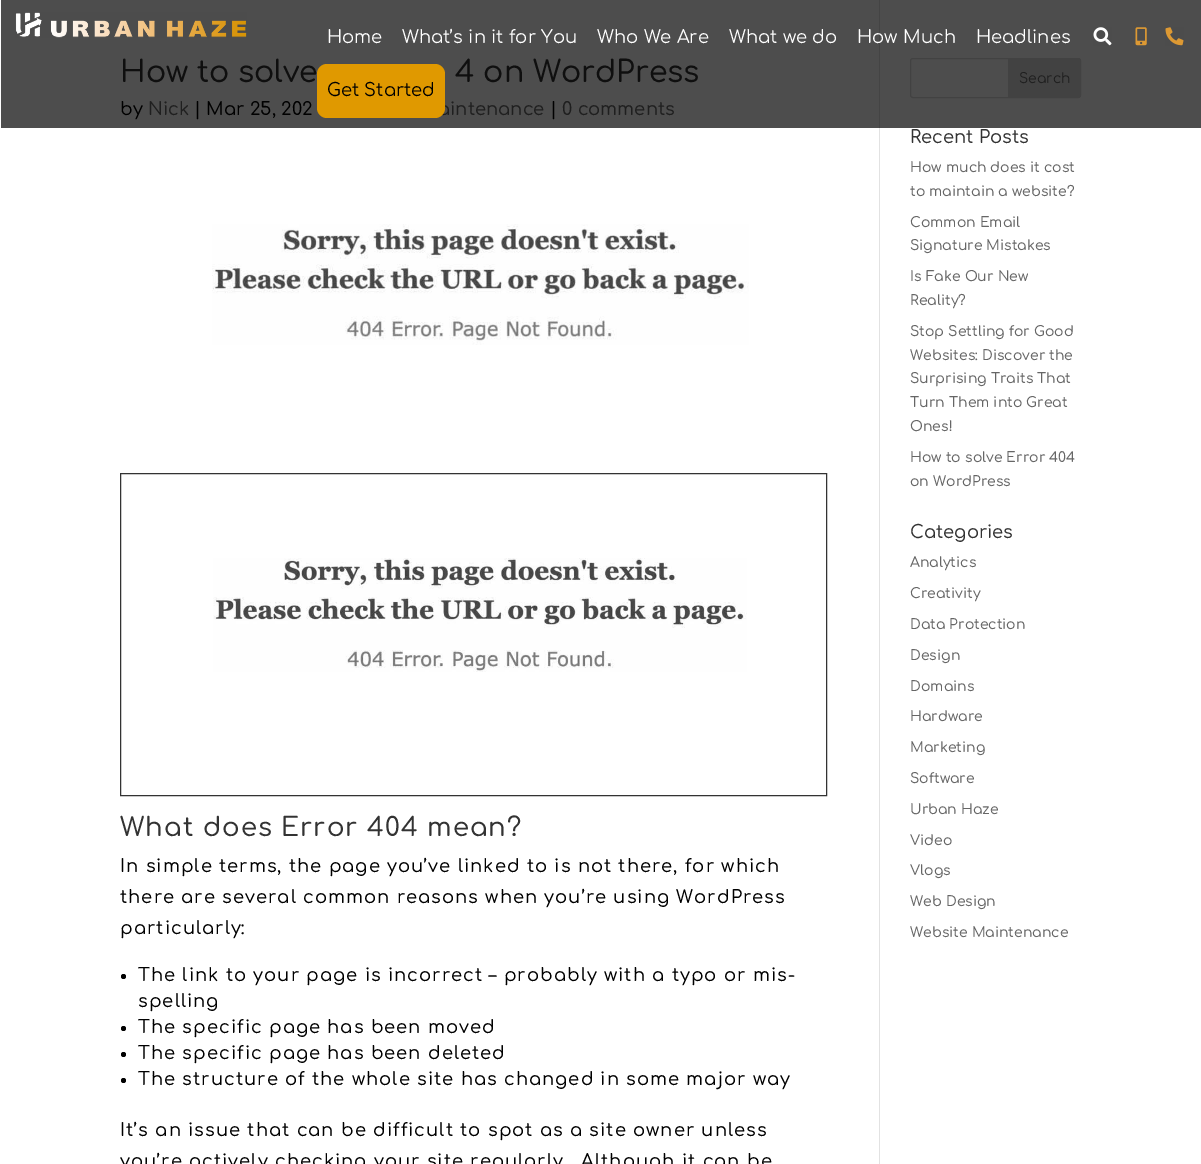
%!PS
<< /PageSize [1201 1164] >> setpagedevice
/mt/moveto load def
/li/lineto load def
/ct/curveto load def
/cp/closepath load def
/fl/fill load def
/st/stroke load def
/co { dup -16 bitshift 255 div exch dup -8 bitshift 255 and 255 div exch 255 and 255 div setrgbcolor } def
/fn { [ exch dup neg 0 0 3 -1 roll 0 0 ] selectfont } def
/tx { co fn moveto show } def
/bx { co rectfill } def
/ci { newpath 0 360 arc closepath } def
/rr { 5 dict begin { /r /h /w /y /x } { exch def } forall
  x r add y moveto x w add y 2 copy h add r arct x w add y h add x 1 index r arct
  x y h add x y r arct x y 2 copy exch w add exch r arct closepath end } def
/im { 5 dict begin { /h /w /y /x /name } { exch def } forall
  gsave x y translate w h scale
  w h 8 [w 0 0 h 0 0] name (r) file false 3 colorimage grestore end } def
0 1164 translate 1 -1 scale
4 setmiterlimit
0 0 1201 1164 16#FFFFFF bx
1 0 1200 128 16#4D4D4D bx
(media/1.raw) 15 12 232 26 im
(media/2.raw) 1093 27 19 19 im
(media/3.raw) 1135 27 12 19 im
(media/4.raw) 1165 27 19 19 im
879 128 1 1036 16#E2E2E2 bx
879 0 1 128 16#444444 bx
(media/5.raw) 212 224 537 121 im
16#333333 co
120.5 473.5 706 322 rectstroke
(media/6.raw) 213 558 534 114 im
16#000000 co
123.5 976.5 2.5 ci fl
123.5 1028.5 2.5 ci fl
123.5 1054.5 2.5 ci fl
123.5 1080.5 2.5 ci fl
16#424242 co
910.5 58.5 170 39 2.5 rr st
1008 58 mt 1078 58 li 1079.5 58 1081 59.5 1081 61 ct 1081 95 li 1081 96.5 1079.5 98 1078 98 ct 1008 98 li cp fl
(Home) 327 43 /Comfortaa-Regular 18 16#FFFFFF tx
(What’s in it for You) 402 43 /Comfortaa-Regular 18 16#FFFFFF tx
(Who We Are) 597 43 /Comfortaa-Regular 18 16#FFFFFF tx
(What we do) 729 43 /Comfortaa-Regular 18 16#FFFFFF tx
(How Much) 857 43 /Comfortaa-Regular 18 16#FFFFFF tx
(Headlines) 976 43 /Comfortaa-Regular 18 16#FFFFFF tx
(How to solve) 120 82 /Comfortaa-Medium 30 16#0F0F0F tx
(4 on WordPress) 455 82 /Comfortaa-Medium 30 16#0F0F0F tx
(by) 120 115 /Comfortaa-Medium 18 16#000000 tx
(Nick) 148 115 /Comfortaa-Medium 18 16#1F1F1F tx
(| Mar 25, 202) 194 115 /Comfortaa-Medium 18 16#000000 tx
(aintenance) 438 115 /Comfortaa-Medium 18 16#1F1F1F tx
16#E09900 co
317 64 128 54 10 rr fl
(Get Started) 327 96 /Comfortaa-Regular 18 16#000000 tx
(|) 550 115 /Comfortaa-Medium 18 16#000000 tx
(0 comments) 562 115 /Comfortaa-Medium 18 16#1F1F1F tx
/Comfortaa-Medium 26 fn
16#333333 co
120 836 mt 1 0 (What does Error 404 mean?) ashow
/Comfortaa-Medium 18 fn
16#000000 co
120 872 mt 1 0 (In simple terms, the page you’ve linked to is not there, for which) ashow
120 903 mt 1 0 (there are several common reasons when you’re using WordPress) ashow
120 934 mt 1 0 (particularly:) ashow
138 981 mt 1 0 (The link to your page is incorrect – probably with a typo or mis-) ashow
138 1007 mt 1 0 (spelling) ashow
138 1033 mt 1 0 (The specific page has been moved) ashow
138 1059 mt 1 0 (The specific page has been deleted) ashow
138 1085 mt 1 0 (The structure of the whole site has changed in some major way) ashow
120 1136 mt 1 0 (It’s an issue that can be difficult to spot as a site owner unless) ashow
120 1167 mt 1 0 (you’re actively checking your site regularly.  Although it can be) ashow
(Search) 1019 83 /Comfortaa-Regular 14 16#1F1F1F tx
(Recent Posts) 910 143 /Comfortaa-Medium 18 16#333333 tx
(How much does it cost) 910 172 /Comfortaa-Medium 14 16#666666 tx
(to maintain a website?) 910 196 /Comfortaa-Medium 14 16#666666 tx
(Common Email) 910 227 /Comfortaa-Medium 14 16#666666 tx
(Signature Mistakes) 910 250 /Comfortaa-Medium 14 16#666666 tx
(Is Fake Our New) 910 281 /Comfortaa-Medium 14 16#666666 tx
(Reality?) 910 305 /Comfortaa-Medium 14 16#666666 tx
(Stop Settling for Good) 910 336 /Comfortaa-Medium 14 16#666666 tx
(Websites: Discover the) 910 360 /Comfortaa-Medium 14 16#666666 tx
(Surprising Traits That) 910 383 /Comfortaa-Medium 14 16#666666 tx
(Turn Them into Great) 910 407 /Comfortaa-Medium 14 16#666666 tx
(Ones!) 910 431 /Comfortaa-Medium 14 16#666666 tx
(How to solve Error 404) 910 462 /Comfortaa-Medium 14 16#666666 tx
(on WordPress) 910 486 /Comfortaa-Medium 14 16#666666 tx
(Categories) 910 538 /Comfortaa-Medium 18 16#333333 tx
(Analytics) 910 567 /Comfortaa-Medium 14 16#666666 tx
(Creativity) 910 598 /Comfortaa-Medium 14 16#666666 tx
(Data Protection) 910 629 /Comfortaa-Medium 14 16#666666 tx
(Design) 910 660 /Comfortaa-Medium 14 16#666666 tx
(Domains) 910 691 /Comfortaa-Medium 14 16#666666 tx
(Hardware) 910 721 /Comfortaa-Medium 14 16#666666 tx
(Marketing) 910 752 /Comfortaa-Medium 14 16#666666 tx
(Software) 910 783 /Comfortaa-Medium 14 16#666666 tx
(Urban Haze) 910 814 /Comfortaa-Medium 14 16#666666 tx
(Video) 910 845 /Comfortaa-Medium 14 16#666666 tx
(Vlogs) 910 875 /Comfortaa-Medium 14 16#666666 tx
(Web Design) 910 906 /Comfortaa-Medium 14 16#666666 tx
(Website Maintenance) 910 937 /Comfortaa-Medium 14 16#666666 tx
showpage
